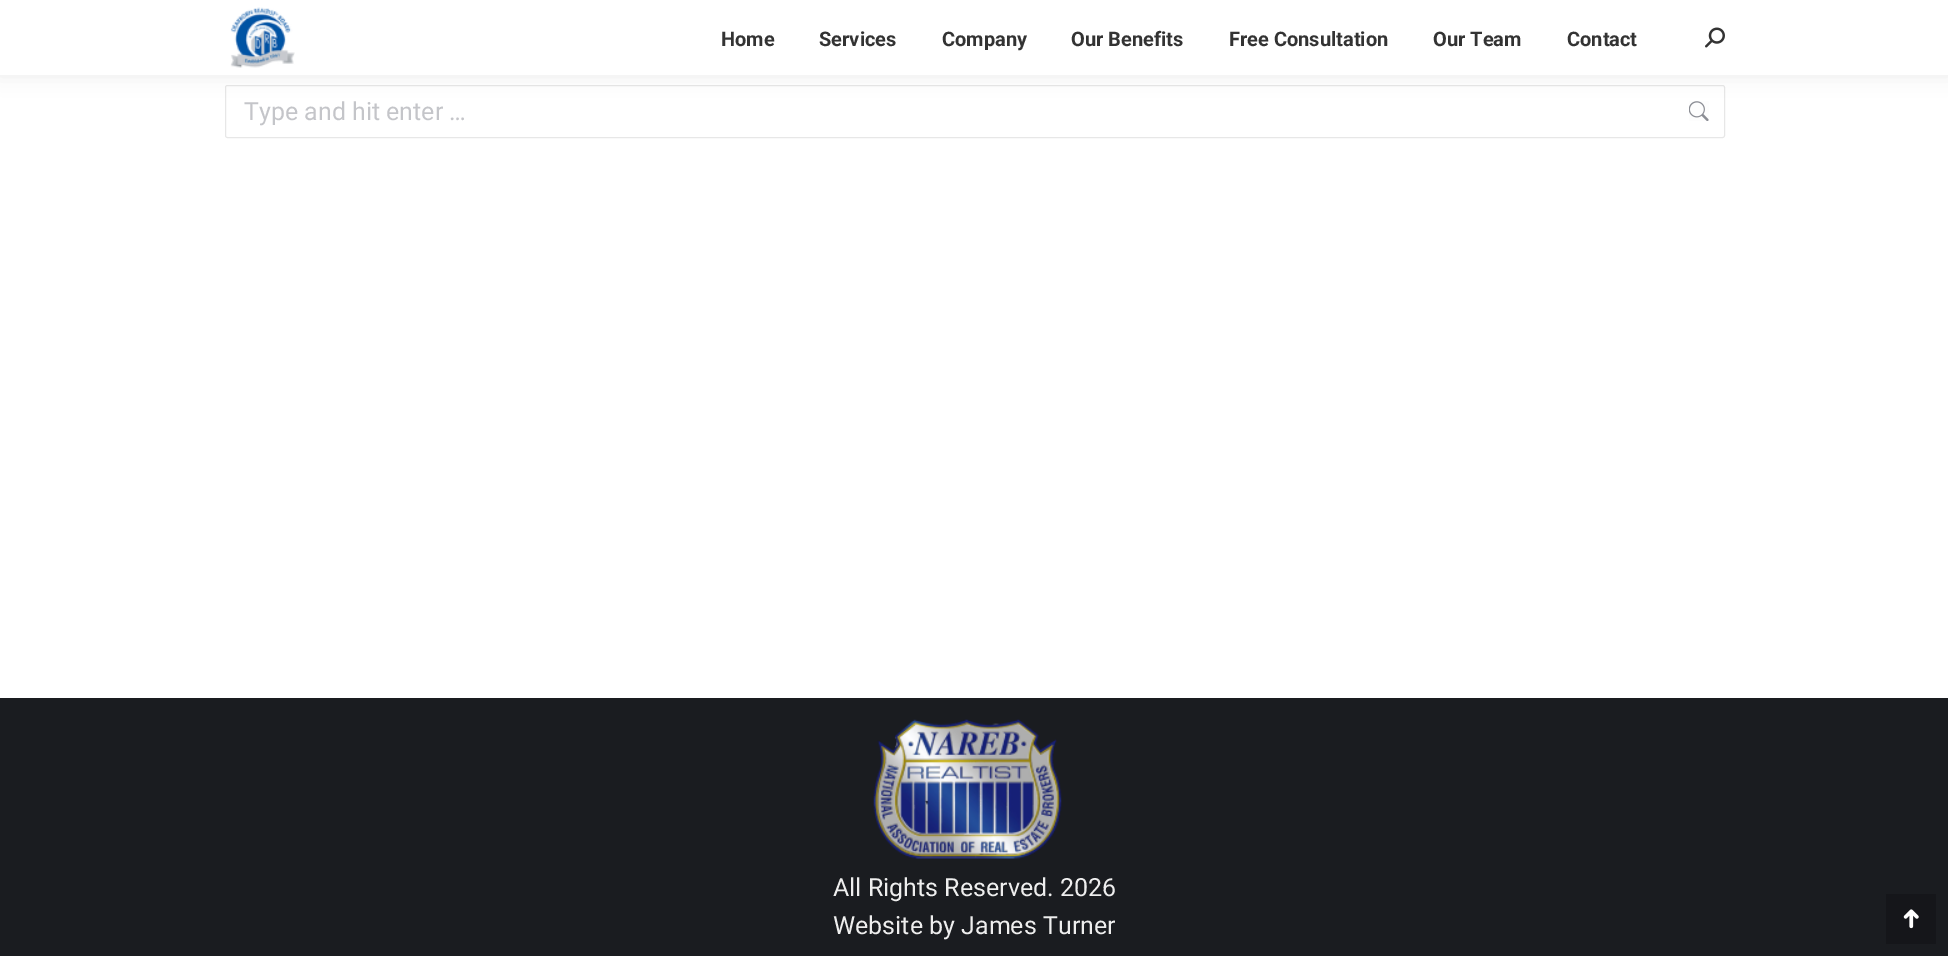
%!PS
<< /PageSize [1948 956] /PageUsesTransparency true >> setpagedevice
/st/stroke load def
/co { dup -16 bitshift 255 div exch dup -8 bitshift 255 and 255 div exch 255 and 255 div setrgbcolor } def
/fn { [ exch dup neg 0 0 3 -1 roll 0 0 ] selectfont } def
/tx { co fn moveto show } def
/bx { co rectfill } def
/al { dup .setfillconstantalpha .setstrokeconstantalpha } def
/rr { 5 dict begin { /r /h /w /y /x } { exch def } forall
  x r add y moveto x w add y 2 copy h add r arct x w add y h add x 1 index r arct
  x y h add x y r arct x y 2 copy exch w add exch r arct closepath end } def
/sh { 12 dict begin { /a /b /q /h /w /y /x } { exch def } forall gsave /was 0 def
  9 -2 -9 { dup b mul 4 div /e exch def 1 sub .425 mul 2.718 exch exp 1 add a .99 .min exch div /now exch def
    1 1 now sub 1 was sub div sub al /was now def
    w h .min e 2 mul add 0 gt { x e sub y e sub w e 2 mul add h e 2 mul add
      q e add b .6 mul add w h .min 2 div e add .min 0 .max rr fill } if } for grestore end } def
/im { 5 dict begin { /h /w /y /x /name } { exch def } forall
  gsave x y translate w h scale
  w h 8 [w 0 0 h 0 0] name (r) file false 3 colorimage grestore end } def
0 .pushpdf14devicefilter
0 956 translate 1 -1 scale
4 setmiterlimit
0 0 1948 956 16#FFFFFF bx
16#E7E7E7 co
225.5 85.5 1499 52 2 rr st
(media/3.raw) 1689 101 20 20 im
16#000000 co
-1 -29 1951 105 0 9.5 .07 sh
0 0 1948 75 16#FFFFFF bx
(media/1.raw) 230 7 65 61 im
(media/2.raw) 1705 27 20 21 im
0 698 1948 258 16#1A1C20 bx
(media/4.raw) 873 719 189 140 im
1886 894 50 50 16#15161A bx
(media/5.raw) 1903 909 16 20 im
(Home) 721 46 /Roboto-Bold 20 16#333333 tx
(Services) 819 46 /Roboto-Bold 20 16#333333 tx
(Company) 942 46 /Roboto-Bold 20 16#333333 tx
(Our Benefits) 1071 46 /Roboto-Bold 20 16#333333 tx
(Free Consultation) 1229 46 /Roboto-Bold 20 16#333333 tx
(Our Team) 1433 46 /Roboto-Bold 20 16#333333 tx
(Contact) 1567 46 /Roboto-Bold 20 16#333333 tx
(Type and hit enter …) 244 120 /Roboto-Regular 25 16#C4C5C9 tx
(All Rights Reserved. 2026) 833 896 /Roboto-Regular 25 16#EEEEEE tx
(Website by James Turner) 833 934 /Roboto-Regular 25 16#EEEEEE tx
.poppdf14devicefilter showpage
